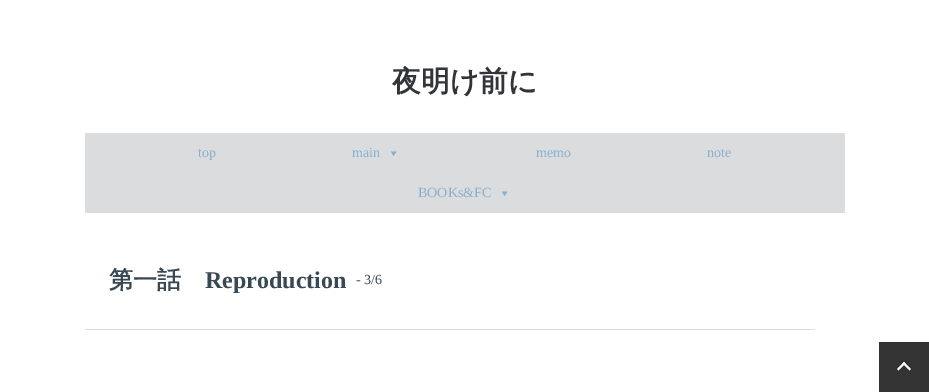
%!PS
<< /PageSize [929 392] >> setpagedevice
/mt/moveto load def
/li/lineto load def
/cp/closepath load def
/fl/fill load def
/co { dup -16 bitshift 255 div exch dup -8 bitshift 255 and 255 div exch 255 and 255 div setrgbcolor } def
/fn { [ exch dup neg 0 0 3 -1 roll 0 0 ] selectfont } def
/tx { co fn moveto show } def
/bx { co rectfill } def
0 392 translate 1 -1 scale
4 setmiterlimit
0 0 929 392 16#FFFFFF bx
85 133 760 80 16#DADCDE bx
16#8BAFCE co
396.5 151.5 mt 393.5 156 li 391 151.5 li cp fl
507.5 191.5 mt 504.5 196 li 502 191.5 li cp fl
85 329 730 1 16#DDDDDD bx
879 342 50 50 16#333333 bx
16#FFFFFF co
904 362 mt 911 369 li 909.5 370.5 li 902.5 363.5 li cp fl
904 362 mt 905.5 363.5 li 898.5 370.5 li 897 369 li cp fl
(夜明け前に) 392 91 /WenQuanYiZenHei-Bold 28.75 16#323438 tx
(top) 198 157 /LiberationSerif-Regular 14 16#8BAFCE tx
(main) 352 157 /LiberationSerif-Regular 14 16#8BAFCE tx
(memo) 536 157 /LiberationSerif-Regular 14 16#8BAFCE tx
(note) 707 157 /LiberationSerif-Regular 14 16#8BAFCE tx
(BOOKs&FC) 418 197 /LiberationSerif-Regular 14 16#8BAFCE tx
(第一話) 109 288 /WenQuanYiZenHei-Bold 24 16#394855 tx
(Reproduction) 205 288 /LiberationSerif-Bold 24 16#394855 tx
(- 3/6) 356 284 /LiberationSerif-Regular 14 16#394855 tx
showpage
